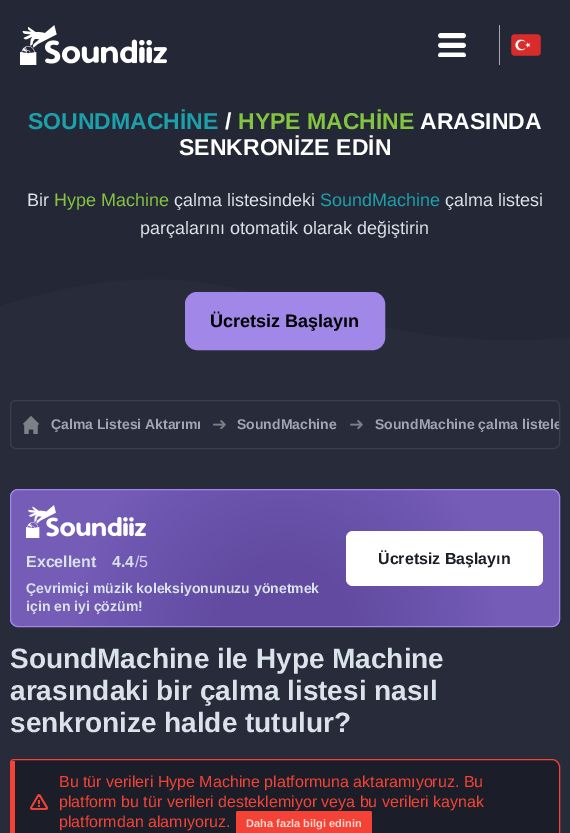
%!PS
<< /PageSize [570 833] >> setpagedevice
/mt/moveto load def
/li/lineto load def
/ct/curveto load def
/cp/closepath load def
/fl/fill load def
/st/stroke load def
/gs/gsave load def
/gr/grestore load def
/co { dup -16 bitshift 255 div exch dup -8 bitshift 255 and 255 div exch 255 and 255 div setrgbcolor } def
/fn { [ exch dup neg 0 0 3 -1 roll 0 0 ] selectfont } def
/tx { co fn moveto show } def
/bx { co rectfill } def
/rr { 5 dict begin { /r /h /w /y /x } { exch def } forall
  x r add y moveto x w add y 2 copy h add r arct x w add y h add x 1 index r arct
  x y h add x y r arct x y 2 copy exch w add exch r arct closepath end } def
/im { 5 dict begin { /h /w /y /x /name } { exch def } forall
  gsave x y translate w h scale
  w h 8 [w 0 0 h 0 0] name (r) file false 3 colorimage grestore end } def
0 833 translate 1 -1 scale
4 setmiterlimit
0 0 570 833 16#282B39 bx
0 0 570 341 16#242735 bx
(media/1.raw) 20 25 147 40 im
(media/2.raw) 438 33 28 24 im
499 25 1 40 16#A7A9AE bx
(media/3.raw) 511 34 30 22 im
gs
0 261 570 119 rectclip
16#282B39 co
-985 330 mt -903 286 -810 257 -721 285 ct -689 295 -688 302 -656 311 ct -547 340 -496 273 -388 277 ct -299 280 -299 327 -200 344 ct -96 361 -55 314 61 290 ct 272 245 310 360 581 337 ct 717 325 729 294 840 303 ct 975 314 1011 363 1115 346 ct 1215 329 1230 276 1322 263 ct 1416 251 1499 292 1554 328 ct 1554 380 li -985 381 li cp fl
gr
16#A187E8 co
185.5 292.5 199 57 11.5 rr gs fl gr
st
16#3A3F50 co
10.5 400.5 549 48 5.5 rr st
(media/4.raw) 23 416 16 18 im
(media/5.raw) 213 420 13 9 im
(media/5.raw) 350 420 13 9 im
gs 10.5 489.5 549 137 7.5 rr clip newpath 285 627 translate 308 308 scale
<< /ShadingType 3 /ColorSpace /DeviceRGB /Coords [0 0 0 0 0 1] /Extend [true true] /Function << /FunctionType 3 /Domain [0 1] /Functions [<< /FunctionType 2 /Domain [0 1] /C0 [.38 .29 .627] /C1 [.38 .29 .627] /N 1 >> << /FunctionType 2 /Domain [0 1] /C0 [.38 .29 .627] /C1 [.455 .361 .718] /N 1 >> << /FunctionType 2 /Domain [0 1] /C0 [.455 .361 .718] /C1 [.455 .361 .718] /N 1 >>] /Bounds [.2 .7] /Encode [0 1 0 1 0 1] >> >> shfill gr
16#A187E8 co
10.5 489.5 549 137 7.5 rr st
(media/6.raw) 26 505 120 33 im
16#FFFFFF co
346 531 197 55 7 rr fl
16#1B1E28 co
15 760 mt 552 760 li 556 760 559 763 559 767 ct 559 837 li 559 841 556 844 552 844 ct 15 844 li cp fl
(media/7.raw) 30 794 18 16 im
16#F44336 co
14 759.5 mt 552 759.5 li 556 759.5 559.5 763 559.5 767 ct 559.5 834 li 559.5 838 556 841.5 552 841.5 ct 14 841.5 li 12 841.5 10.5 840 10.5 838 ct 10.5 763 li 10.5 761 12 759.5 14 759.5 ct cp st
11 761 4 72 16#F44336 bx
236 811 136 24 2 rr fl
(SOUNDMACHİNE) 28 129 /LiberationSans-Bold 23 16#1CA1AA tx
(/) 225 129 /LiberationSans-Bold 23 16#FFFFFF tx
(HYPE MACHİNE) 238 129 /LiberationSans-Bold 23 16#83C441 tx
(ARASINDA) 420 129 /LiberationSans-Bold 23 16#FFFFFF tx
(SENKRONİZE EDİN) 179 155 /LiberationSans-Bold 23 16#FFFFFF tx
(Bir) 27 206 /LiberationSans-Regular 18 16#DAE3E9 tx
(Hype Machine) 54 206 /LiberationSans-Regular 18 16#83C441 tx
(çalma listesindeki) 174 206 /LiberationSans-Regular 18 16#DAE3E9 tx
(SoundMachine) 320 206 /LiberationSans-Regular 18 16#1CA1AA tx
(çalma listesi) 445 206 /LiberationSans-Regular 18 16#DAE3E9 tx
(parçalarını otomatik olarak değiştirin) 140 234 /LiberationSans-Regular 18 16#DAE3E9 tx
(Ücretsiz Başlayın) 210 327 /LiberationSans-Bold 18 16#000000 tx
(Çalma Listesi Aktarımı) 51 429 /LiberationSans-Bold 14 16#A1A6B6 tx
(SoundMachine) 237 429 /LiberationSans-Bold 14 16#A1A6B6 tx
gs
11 401 548 47 5 rr clip newpath
(SoundMachine çalma listele) 375 429 /LiberationSans-Bold 14 16#A1A6B6 tx
gr
(Excellent) 26 567 /LiberationSans-Bold 16 16#DAE3E9 tx
(4.4) 112 567 /LiberationSans-Bold 16 16#DAE3E9 tx
(/5) 135 567 /LiberationSans-Regular 16 16#DAD2F5 tx
(Çevrimiçi müzik koleksiyonunuzu yönetmek) 26 593 /LiberationSans-Bold 14 16#DAE3E9 tx
(için en iyi çözüm!) 26 611 /LiberationSans-Bold 14 16#DAE3E9 tx
(Ücretsiz Başlayın) 378 564 /LiberationSans-Bold 16 16#1B1E28 tx
(SoundMachine ile Hype Machine) 10 668 /LiberationSans-Bold 28 16#DAE3E9 tx
(arasındaki bir çalma listesi nasıl) 10 700 /LiberationSans-Bold 28 16#DAE3E9 tx
(senkronize halde tutulur?) 10 732 /LiberationSans-Bold 28 16#DAE3E9 tx
(Bu tür verileri Hype Machine platformuna aktaramıyoruz. Bu) 59 787 /LiberationSans-Regular 16 16#F44336 tx
(platform bu tür verileri desteklemiyor veya bu verileri kaynak) 59 807 /LiberationSans-Regular 16 16#F44336 tx
(platformdan alamıyoruz.) 59 827 /LiberationSans-Regular 16 16#F44336 tx
(Daha fazla bilgi edinin) 246 827 /LiberationSans-Bold 11 16#FDD5CF tx
showpage
